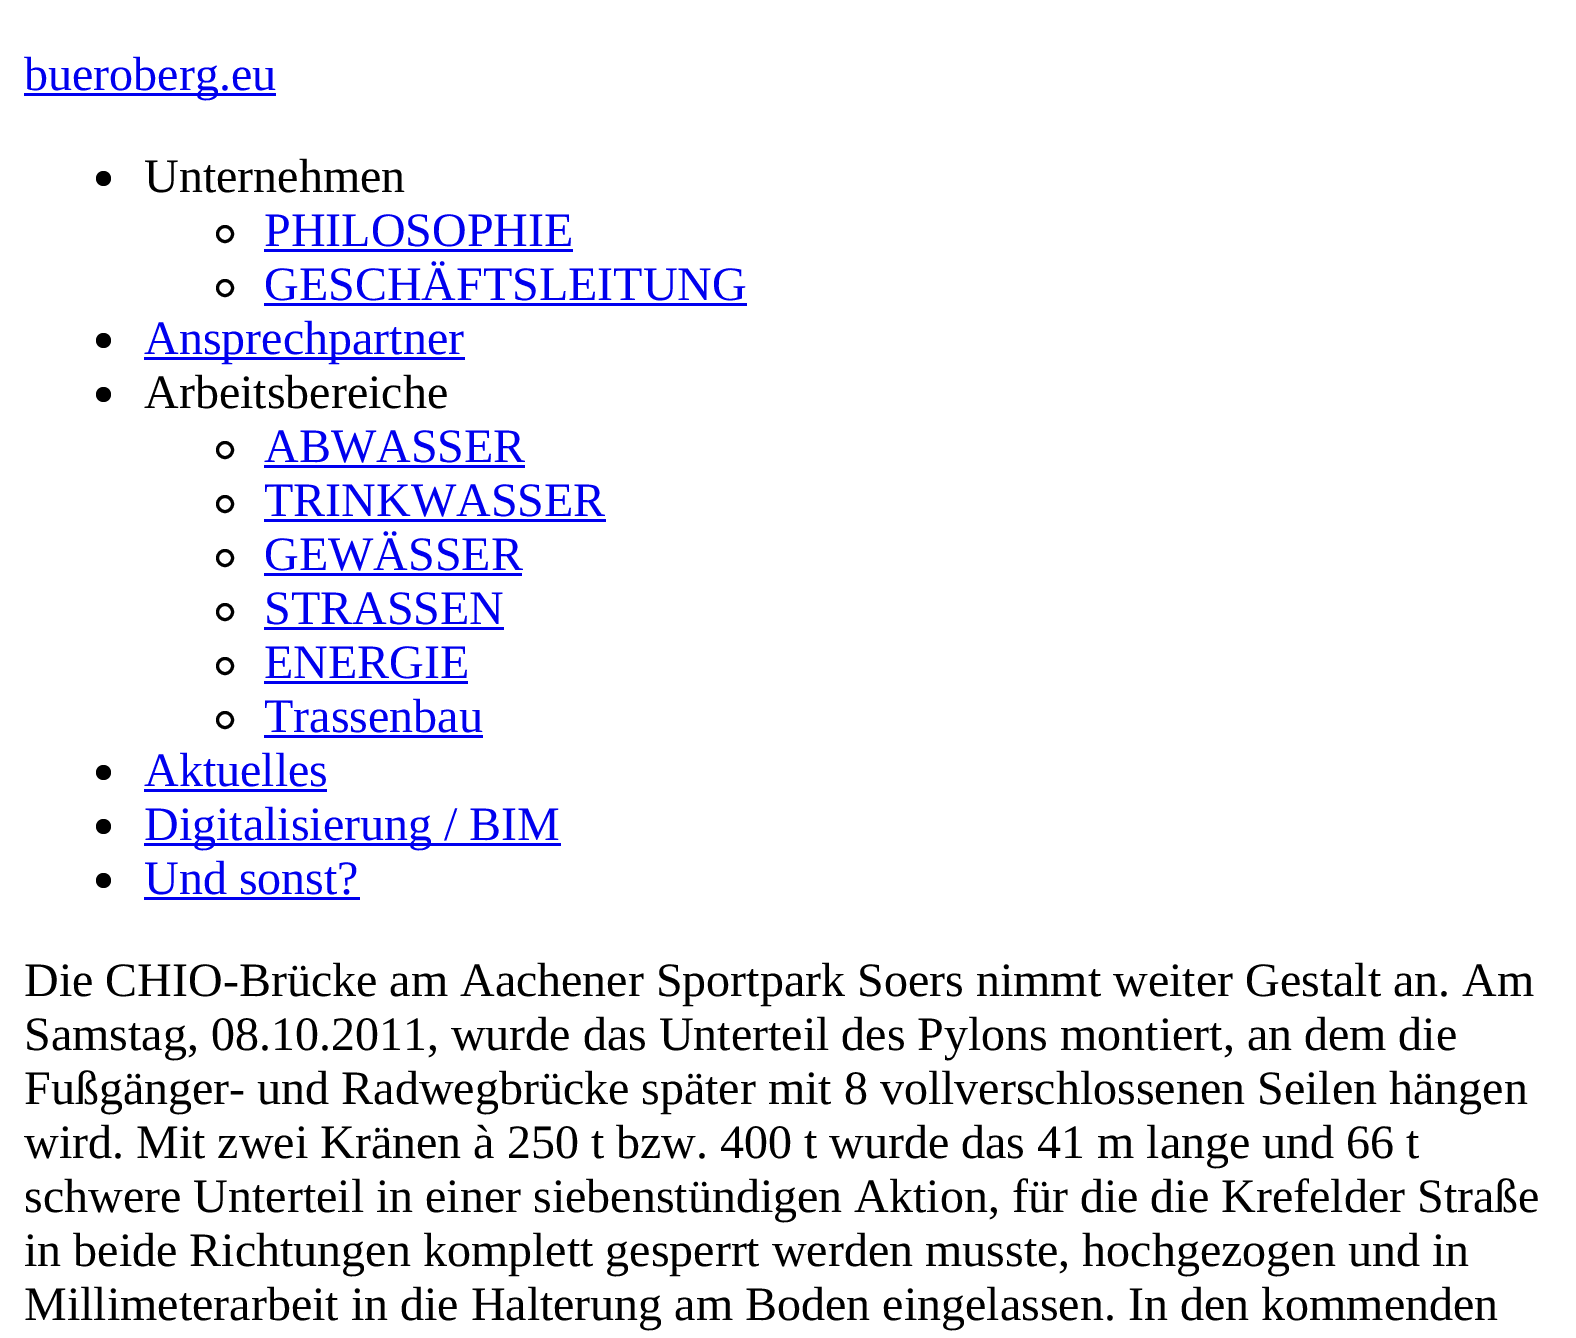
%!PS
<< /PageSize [1576 1338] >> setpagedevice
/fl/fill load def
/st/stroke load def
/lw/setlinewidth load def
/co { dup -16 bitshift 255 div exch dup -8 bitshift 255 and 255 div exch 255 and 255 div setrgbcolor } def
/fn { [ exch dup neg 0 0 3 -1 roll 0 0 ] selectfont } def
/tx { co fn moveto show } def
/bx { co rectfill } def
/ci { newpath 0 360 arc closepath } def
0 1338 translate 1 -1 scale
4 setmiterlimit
0 0 1576 1338 16#FFFFFF bx
24 93 252 3 16#0000EE bx
16#000000 co
103.5 178.5 7.5 ci fl
3 lw
225 234 7.5 ci st
264 249 309 3 16#0000EE bx
16#000000 co
225 288 7.5 ci st
264 303 483 3 16#0000EE bx
16#000000 co
103.5 340.5 7.5 ci fl
144 357 321 3 16#0000EE bx
16#000000 co
103.5 394.5 7.5 ci fl
225 450 7.5 ci st
264 465 261 3 16#0000EE bx
16#000000 co
225 504 7.5 ci st
264 519 342 3 16#0000EE bx
16#000000 co
225 558 7.5 ci st
264 573 258 3 16#0000EE bx
16#000000 co
225 612 7.5 ci st
264 627 240 3 16#0000EE bx
16#000000 co
225 666 7.5 ci st
264 681 204 3 16#0000EE bx
16#000000 co
225 720 7.5 ci st
264 735 219 3 16#0000EE bx
16#000000 co
103.5 772.5 7.5 ci fl
144 789 183 3 16#0000EE bx
16#000000 co
103.5 826.5 7.5 ci fl
144 843 417 3 16#0000EE bx
16#000000 co
103.5 880.5 7.5 ci fl
144 897 216 3 16#0000EE bx
(bueroberg.eu) 24 90 /LiberationSerif-Regular 48 16#0000EE tx
(Unternehmen) 144 192 /LiberationSerif-Regular 48 16#000000 tx
(PHILOSOPHIE) 264 246 /LiberationSerif-Regular 48 16#0000EE tx
(GESCHÄFTSLEITUNG) 264 300 /LiberationSerif-Regular 48 16#0000EE tx
(Ansprechpartner) 144 354 /LiberationSerif-Regular 48 16#0000EE tx
(Arbeitsbereiche) 144 408 /LiberationSerif-Regular 48 16#000000 tx
(ABWASSER) 264 462 /LiberationSerif-Regular 48 16#0000EE tx
(TRINKWASSER) 264 516 /LiberationSerif-Regular 48 16#0000EE tx
(GEWÄSSER) 264 570 /LiberationSerif-Regular 48 16#0000EE tx
(STRASSEN) 264 624 /LiberationSerif-Regular 48 16#0000EE tx
(ENERGIE) 264 678 /LiberationSerif-Regular 48 16#0000EE tx
(Trassenbau) 264 732 /LiberationSerif-Regular 48 16#0000EE tx
(Aktuelles) 144 786 /LiberationSerif-Regular 48 16#0000EE tx
(Digitalisierung / BIM) 144 840 /LiberationSerif-Regular 48 16#0000EE tx
(Und sonst?) 144 894 /LiberationSerif-Regular 48 16#0000EE tx
(Die CHIO-Brücke am Aachener Sportpark Soers nimmt weiter Gestalt an. Am) 24 996 /LiberationSerif-Regular 48 16#000000 tx
(Samstag, 08.10.2011, wurde das Unterteil des Pylons montiert, an dem die) 24 1050 /LiberationSerif-Regular 48 16#000000 tx
(Fußgänger- und Radwegbrücke später mit 8 vollverschlossenen Seilen hängen) 24 1104 /LiberationSerif-Regular 48 16#000000 tx
(wird. Mit zwei Kränen à 250 t bzw. 400 t wurde das 41 m lange und 66 t) 24 1158 /LiberationSerif-Regular 48 16#000000 tx
(schwere Unterteil in einer siebenstündigen Aktion, für die die Krefelder Straße) 24 1212 /LiberationSerif-Regular 48 16#000000 tx
(in beide Richtungen komplett gesperrt werden musste, hochgezogen und in) 24 1266 /LiberationSerif-Regular 48 16#000000 tx
(Millimeterarbeit in die Halterung am Boden eingelassen. In den kommenden) 24 1320 /LiberationSerif-Regular 48 16#000000 tx
showpage
